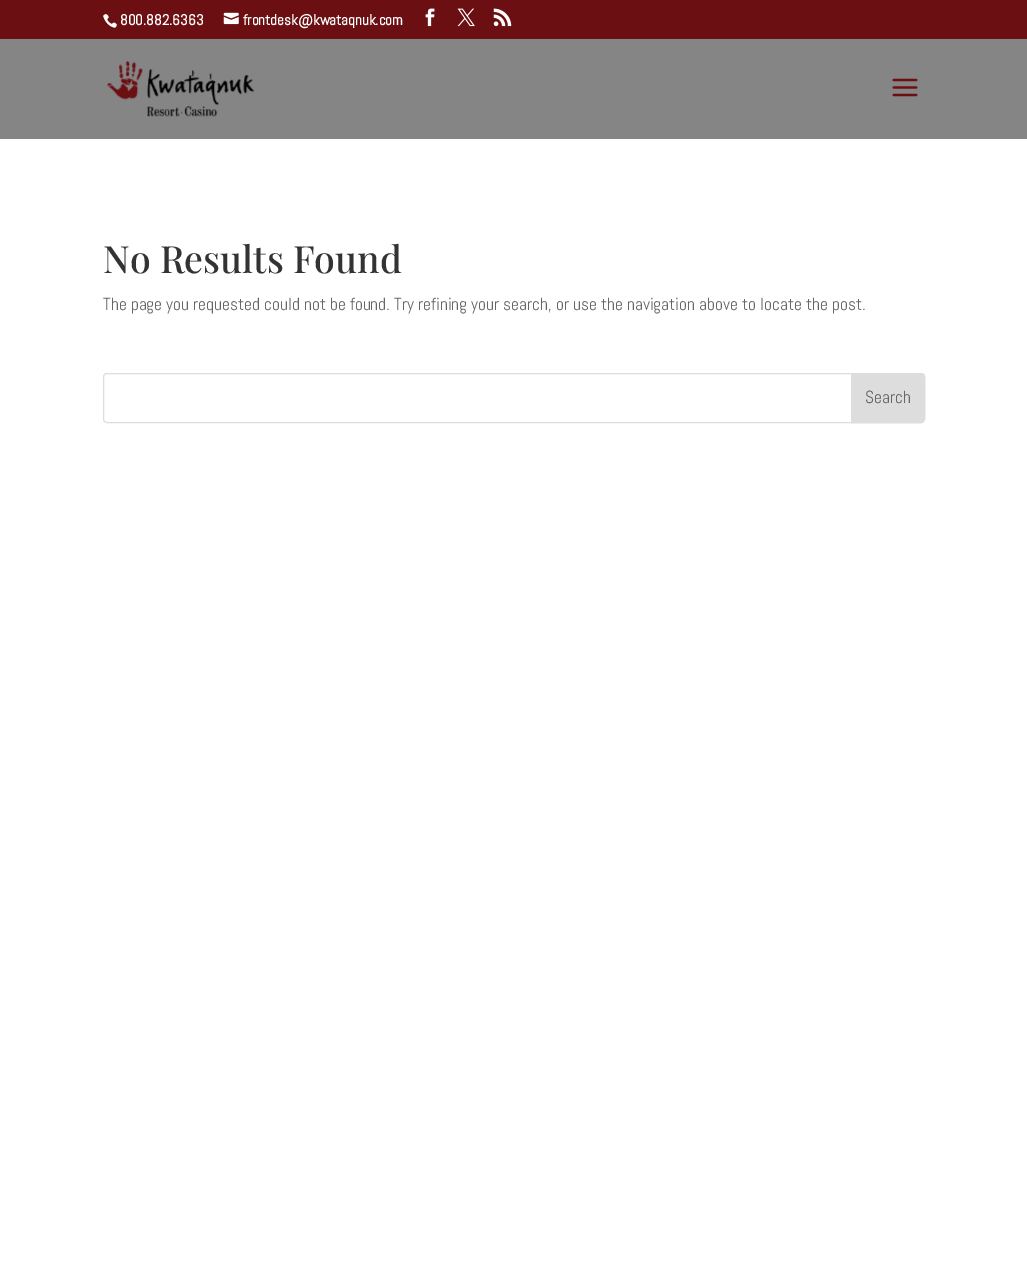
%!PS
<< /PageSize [1027 1261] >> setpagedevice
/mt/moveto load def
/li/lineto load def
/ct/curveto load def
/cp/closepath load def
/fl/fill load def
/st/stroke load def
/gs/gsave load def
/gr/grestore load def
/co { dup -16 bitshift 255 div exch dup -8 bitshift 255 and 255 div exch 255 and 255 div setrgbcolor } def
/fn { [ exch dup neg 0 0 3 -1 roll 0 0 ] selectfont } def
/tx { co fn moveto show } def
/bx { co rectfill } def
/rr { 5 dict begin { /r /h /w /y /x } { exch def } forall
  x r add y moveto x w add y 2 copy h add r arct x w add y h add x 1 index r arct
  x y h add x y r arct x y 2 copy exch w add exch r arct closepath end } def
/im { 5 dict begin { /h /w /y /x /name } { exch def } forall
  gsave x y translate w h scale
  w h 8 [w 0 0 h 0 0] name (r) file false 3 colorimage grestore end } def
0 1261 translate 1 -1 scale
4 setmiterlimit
0 0 1027 1261 16#FFFFFF bx
0 0 1027 39 16#6C0F12 bx
(media/1.raw) 103 14 14 14 im
(media/2.raw) 223 12 16 13 im
(media/3.raw) 425 8 10 19 im
(media/4.raw) 457 8 18 19 im
(media/5.raw) 493 8 19 19 im
0 39 1027 100 16#858585 bx
(media/6.raw) 107 61 148 56 im
(media/7.raw) 892 78 26 19 im
16#DDDDDD co
103.5 373.5 821 49 3.5 rr st
851.5 373.5 mt 921 373.5 li 923 373.5 924.5 375 924.5 377 ct 924.5 419 li 924.5 421 923 422.5 921 422.5 ct 851.5 422.5 li cp gs fl gr
st
(800.882.6363) 120 25 /Abel-Bold 15 16#FFFFFF tx
(frontdesk@kwataqnuk.com) 243 25 /Abel-Bold 15 16#FFFFFF tx
(No Results Found) 103 273 /PlayfairDisplay-Medium 37.5 16#333333 tx
(The page you requested could not be found. Try refining your search, or use the navigation above to locate the post.) 103 310 /Abel-Regular 17.5 16#666666 tx
(Search) 865 403 /Abel-Regular 17.5 16#666666 tx
showpage
